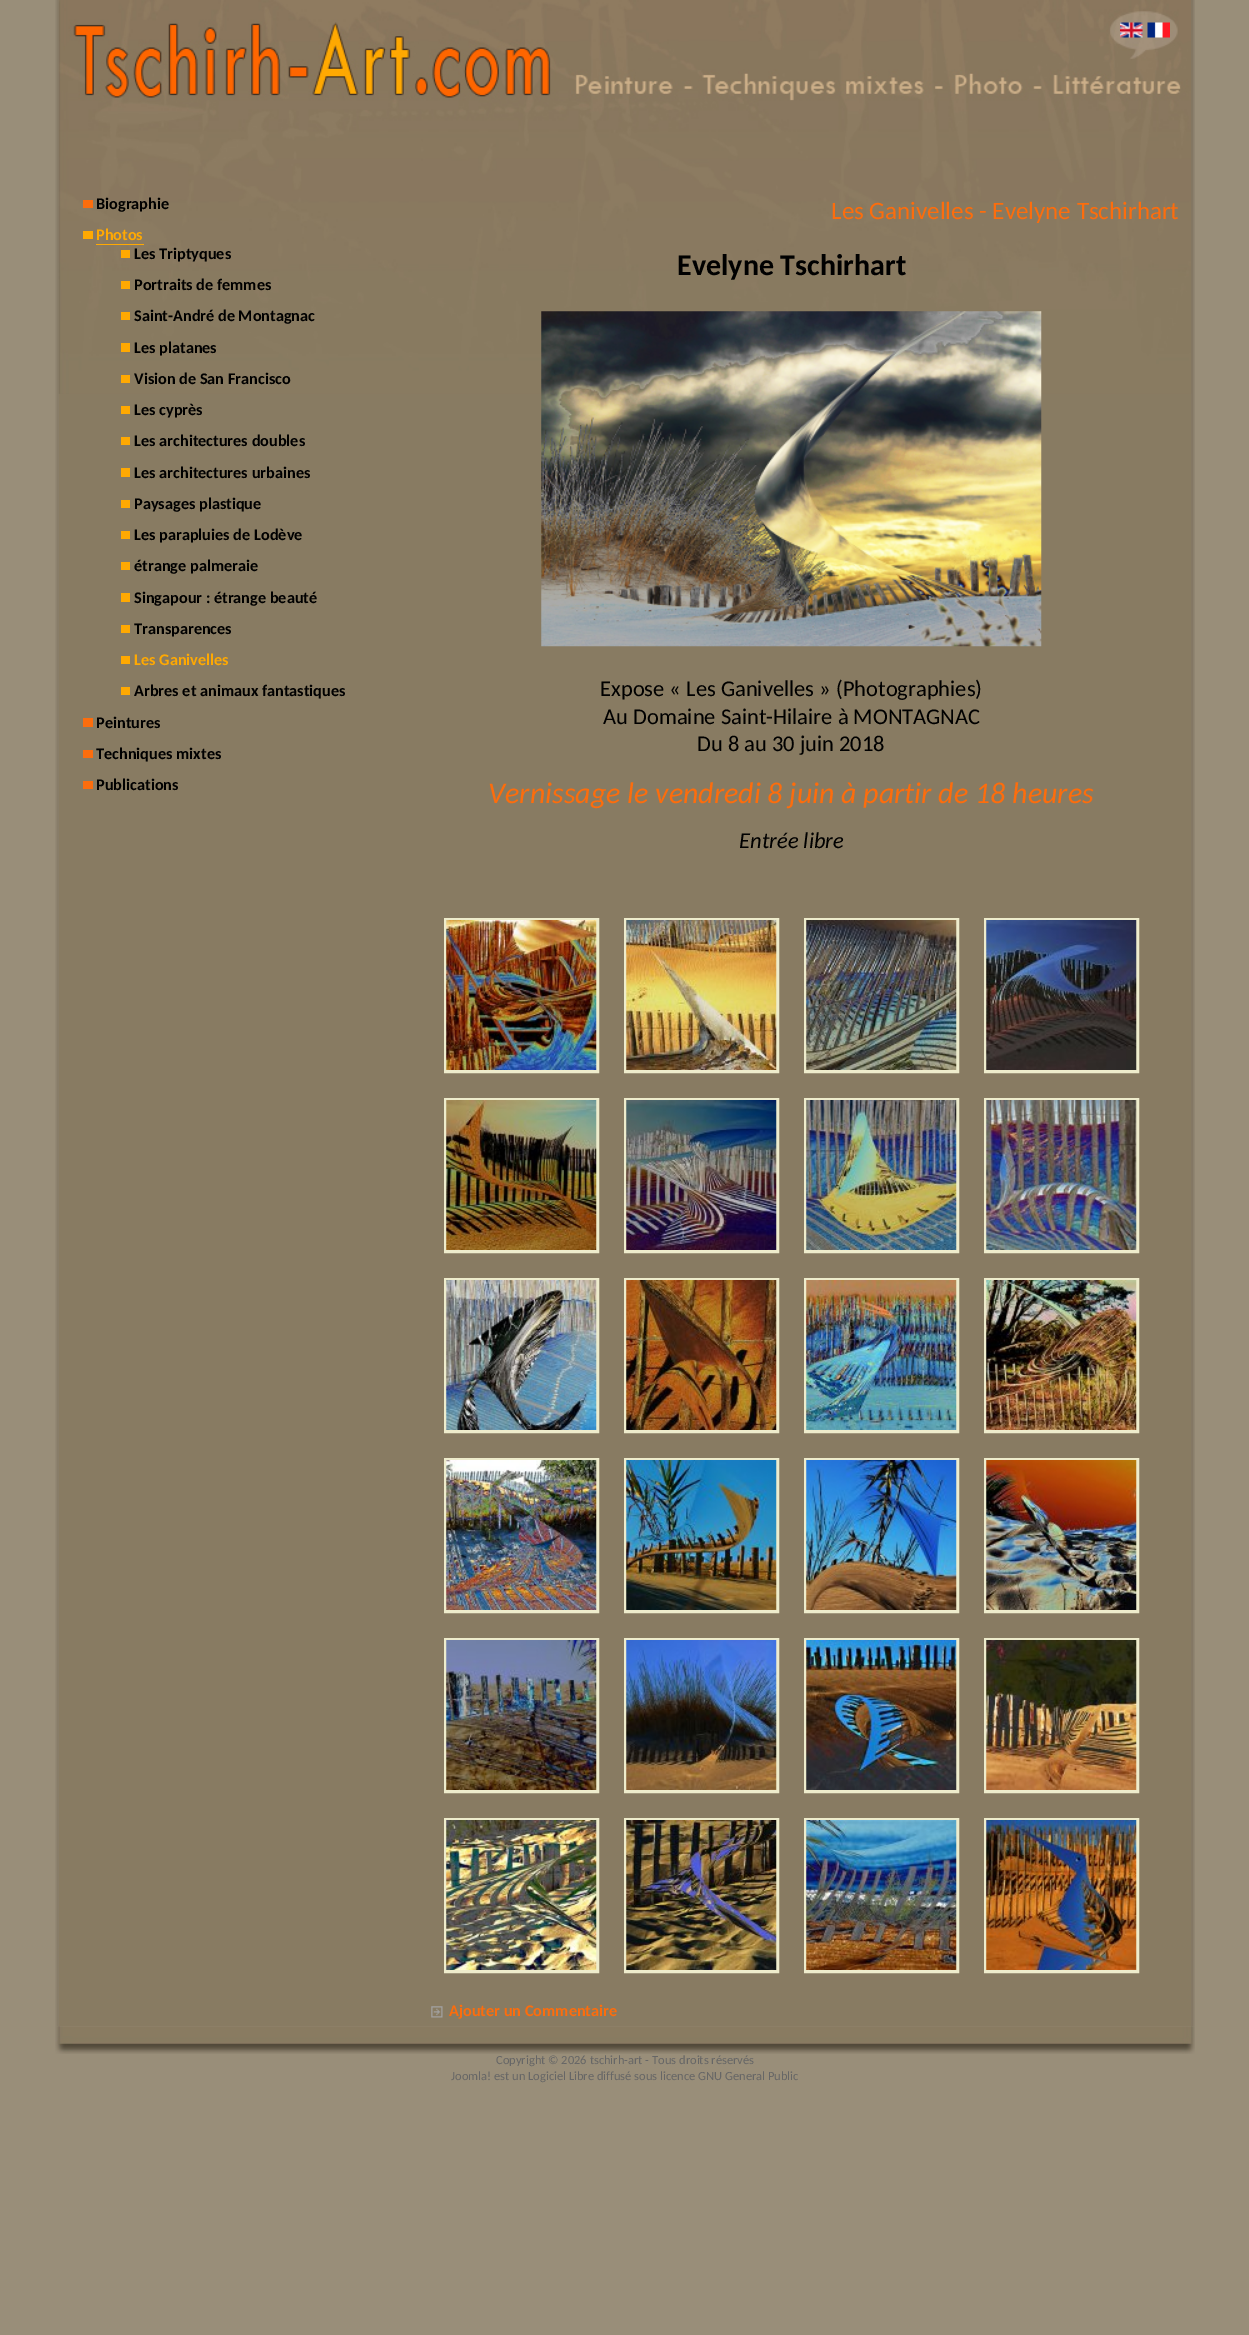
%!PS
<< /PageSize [1249 2335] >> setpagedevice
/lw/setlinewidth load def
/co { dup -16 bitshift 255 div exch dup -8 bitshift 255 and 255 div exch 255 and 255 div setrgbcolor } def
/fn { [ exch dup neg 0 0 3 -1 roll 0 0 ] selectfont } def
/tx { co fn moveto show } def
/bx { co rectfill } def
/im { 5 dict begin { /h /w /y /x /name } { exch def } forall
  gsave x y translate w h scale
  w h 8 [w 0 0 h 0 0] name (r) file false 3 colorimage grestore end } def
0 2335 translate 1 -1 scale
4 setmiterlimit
0 0 1249 2335 16#998E79 bx
(media/1.raw) 55 0 4 2027 im
59 393 1132 1633 16#887B62 bx
(media/2.raw) 58 0 1134 394 im
(media/3.raw) 1120 22 23 16 im
(media/4.raw) 1147 22 23 16 im
83 200 10 8 16#FC6D0D bx
83 231 10 8 16#FFA902 bx
96 244 48 1 16#FFA902 bx
121 250 9 8 16#FFA902 bx
121 281 9 8 16#FFA902 bx
121 312 9 8 16#FFA902 bx
121 343 9 9 16#FFA902 bx
121 375 9 8 16#FFA902 bx
121 406 9 8 16#FFA902 bx
121 437 9 8 16#FFA902 bx
121 468 9 9 16#FFA902 bx
121 500 9 8 16#FFA902 bx
121 531 9 8 16#FFA902 bx
121 562 9 8 16#FFA902 bx
121 593 9 9 16#FFA902 bx
121 625 9 8 16#FFA902 bx
121 656 9 8 16#FFA902 bx
121 687 9 8 16#FFA902 bx
83 718 10 9 16#FC6D0D bx
83 750 10 8 16#FC6D0D bx
83 781 10 8 16#FC6D0D bx
(media/5.raw) 541 311 501 336 im
16#EEECCC co
3 lw
445.5 919.5 152 152 rectstroke
(media/6.raw) 446 920 151 150 im
625.5 919.5 152 152 rectstroke
(media/7.raw) 626 920 151 150 im
805.5 919.5 152 152 rectstroke
(media/8.raw) 806 920 151 150 im
985.5 919.5 152 152 rectstroke
(media/9.raw) 986 920 151 150 im
445.5 1099.5 152 152 rectstroke
(media/10.raw) 446 1100 151 150 im
625.5 1099.5 152 152 rectstroke
(media/11.raw) 626 1100 151 150 im
805.5 1099.5 152 152 rectstroke
(media/12.raw) 806 1100 151 150 im
985.5 1099.5 152 152 rectstroke
(media/13.raw) 986 1100 151 150 im
445.5 1279.5 152 152 rectstroke
(media/14.raw) 446 1280 151 150 im
625.5 1279.5 152 152 rectstroke
(media/15.raw) 626 1280 151 150 im
805.5 1279.5 152 152 rectstroke
(media/16.raw) 806 1280 151 150 im
985.5 1279.5 152 152 rectstroke
(media/17.raw) 986 1280 151 150 im
445.5 1459.5 152 152 rectstroke
(media/18.raw) 446 1460 151 150 im
625.5 1459.5 152 152 rectstroke
(media/19.raw) 626 1460 151 150 im
805.5 1459.5 152 152 rectstroke
(media/20.raw) 806 1460 151 150 im
985.5 1459.5 152 152 rectstroke
(media/21.raw) 986 1460 151 150 im
445.5 1639.5 152 152 rectstroke
(media/22.raw) 446 1640 151 150 im
625.5 1639.5 152 152 rectstroke
(media/23.raw) 626 1640 151 150 im
805.5 1639.5 152 152 rectstroke
(media/24.raw) 806 1640 151 150 im
985.5 1639.5 152 152 rectstroke
(media/25.raw) 986 1640 151 150 im
445.5 1819.5 152 152 rectstroke
(media/26.raw) 446 1820 151 150 im
625.5 1819.5 152 152 rectstroke
(media/27.raw) 626 1820 151 150 im
805.5 1819.5 152 152 rectstroke
(media/28.raw) 806 1820 151 150 im
985.5 1819.5 152 152 rectstroke
(media/29.raw) 986 1820 151 150 im
(media/30.raw) 431 2006 12 12 im
(media/31.raw) 1191 0 4 2027 im
(media/32.raw) 55 2026 1140 28 im
(Biographie) 96 209 /Carlito-Bold 16.25 16#000000 tx
(Photos) 96 240 /Carlito-Bold 16.25 16#FFA902 tx
(Les Triptyques) 134 259 /Carlito-Bold 16.25 16#000000 tx
(Portraits de femmes) 134 290 /Carlito-Bold 16.25 16#000000 tx
(Saint-André de Montagnac) 134 321 /Carlito-Bold 16.25 16#000000 tx
(Les platanes) 134 353 /Carlito-Bold 16.25 16#000000 tx
(Vision de San Francisco) 134 384 /Carlito-Bold 16.25 16#000000 tx
(Les cyprès) 134 415 /Carlito-Bold 16.25 16#000000 tx
(Les architectures doubles) 134 446 /Carlito-Bold 16.25 16#000000 tx
(Les architectures urbaines) 134 478 /Carlito-Bold 16.25 16#000000 tx
(Paysages plastique) 134 509 /Carlito-Bold 16.25 16#000000 tx
(Les parapluies de Lodève) 134 540 /Carlito-Bold 16.25 16#000000 tx
(étrange palmeraie) 134 571 /Carlito-Bold 16.25 16#000000 tx
(Singapour : étrange beauté) 134 603 /Carlito-Bold 16.25 16#000000 tx
(Transparences) 134 634 /Carlito-Bold 16.25 16#000000 tx
(Les Ganivelles) 134 665 /Carlito-Bold 16.25 16#FFA902 tx
(Arbres et animaux fantastiques) 134 696 /Carlito-Bold 16.25 16#000000 tx
(Peintures) 96 728 /Carlito-Bold 16.25 16#000000 tx
(Techniques mixtes) 96 759 /Carlito-Bold 16.25 16#000000 tx
(Publications) 96 790 /Carlito-Bold 16.25 16#000000 tx
(Les Ganivelles - Evelyne Tschirhart) 831 219 /Carlito-Regular 25 16#FC6D0D tx
(Evelyne Tschirhart) 677 275 /Carlito-Bold 30 16#000000 tx
(Expose « Les Ganivelles » \(Photographies\)) 600 696 /Carlito-Regular 22.5 16#000000 tx
(Au Domaine Saint-Hilaire à MONTAGNAC) 603 724 /Carlito-Regular 22.5 16#000000 tx
(Du 8 au 30 juin 2018) 697 751 /Carlito-Regular 22.5 16#000000 tx
(Vernissage le vendredi 8 juin à partir de 18 heures) 488 803 /Carlito-Italic 30 16#FC6D0D tx
(Entrée libre) 739 848 /Carlito-Italic 22.5 16#000000 tx
(Ajouter un Commentaire) 449 2016 /Carlito-Bold 16.25 16#FC6D0D tx
(Copyright © 2026 tschirh-art - Tous droits réservés) 496 2064 /Carlito-Regular 12.5 16#666666 tx
(Joomla! est un Logiciel Libre diffusé sous licence GNU General Public) 451 2080 /Carlito-Regular 12.5 16#666666 tx
showpage
